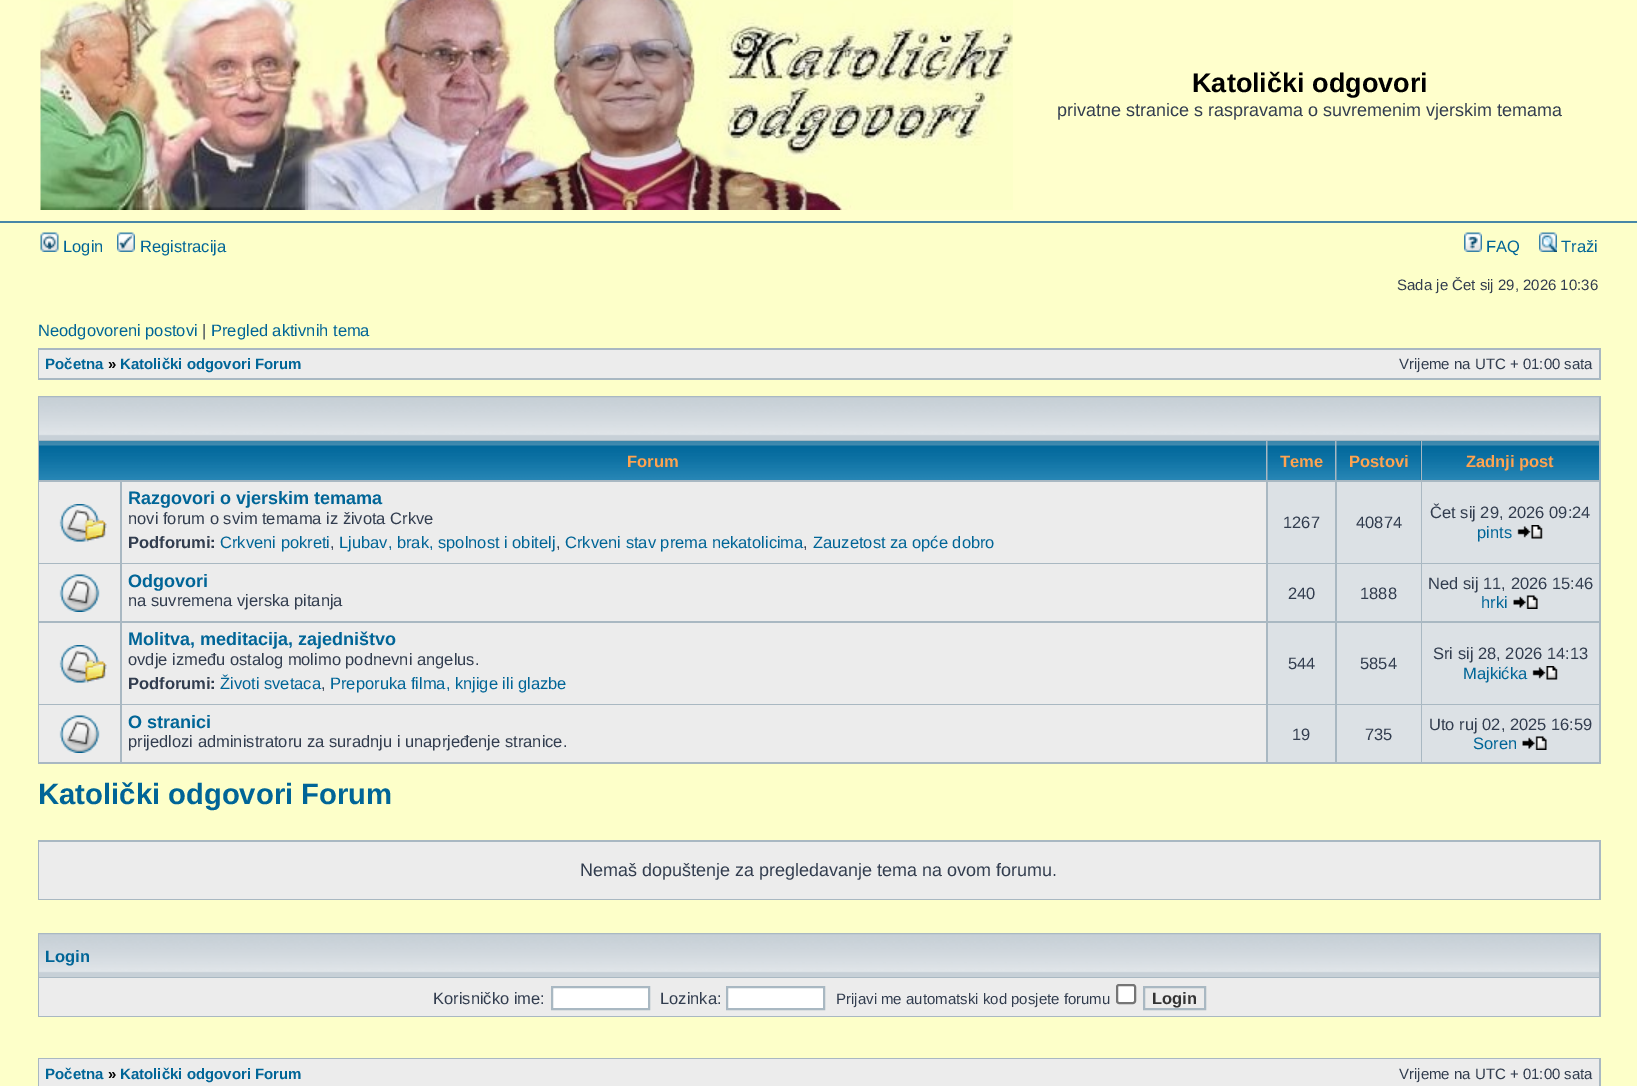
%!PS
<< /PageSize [1637 1086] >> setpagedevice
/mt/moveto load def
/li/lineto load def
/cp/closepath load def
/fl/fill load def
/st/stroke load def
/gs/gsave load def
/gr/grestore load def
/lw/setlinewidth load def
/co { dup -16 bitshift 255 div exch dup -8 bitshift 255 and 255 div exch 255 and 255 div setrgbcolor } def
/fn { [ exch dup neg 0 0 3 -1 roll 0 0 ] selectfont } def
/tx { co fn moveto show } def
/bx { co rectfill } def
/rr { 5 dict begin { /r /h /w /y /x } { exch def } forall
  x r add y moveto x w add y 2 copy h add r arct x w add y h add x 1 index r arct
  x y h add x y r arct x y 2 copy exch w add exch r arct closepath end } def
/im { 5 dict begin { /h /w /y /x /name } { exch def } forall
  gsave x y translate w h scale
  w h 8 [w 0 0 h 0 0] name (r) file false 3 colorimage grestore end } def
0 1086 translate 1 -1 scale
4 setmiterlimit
0 0 1637 1086 16#FDFFC9 bx
0 0 1637 221 16#FFFFCC bx
0 221 1637 2 16#4787A7 bx
(media/1.raw) 40 0 973 210 im
(media/2.raw) 40 232 19 20 im
(media/3.raw) 117 232 18 20 im
(media/4.raw) 1464 232 18 20 im
(media/5.raw) 1539 232 18 20 im
38 348 1563 32 16#A9B8C2 bx
39 350 1560 28 16#ECECEC bx
38 396 1563 368 16#A9B8C2 bx
39 436 1560 4 16#C7D0D7 bx
(media/6.raw) 39 397 1560 39 im
(media/7.raw) 39 441 1227 39 im
(media/8.raw) 1267 441 68 39 im
1420 441 1 39 16#006699 bx
(media/9.raw) 1336 441 85 39 im
(media/10.raw) 1422 441 177 39 im
39 482 81 81 16#ECECEC bx
(media/11.raw) 59 504 48 38 im
122 482 1144 81 16#ECECEC bx
1268 482 67 81 16#DCE1E5 bx
1337 482 84 81 16#DCE1E5 bx
1422 482 177 81 16#DCE1E5 bx
(media/12.raw) 1517 525 26 14 im
39 564 81 57 16#ECECEC bx
(media/13.raw) 59 574 41 38 im
122 564 1144 57 16#ECECEC bx
1268 564 67 57 16#DCE1E5 bx
1337 564 84 57 16#DCE1E5 bx
1422 564 177 57 16#DCE1E5 bx
(media/14.raw) 1513 595 25 14 im
39 623 81 81 16#ECECEC bx
(media/11.raw) 59 645 48 38 im
122 623 1144 81 16#ECECEC bx
1268 623 67 81 16#DCE1E5 bx
1337 623 84 81 16#DCE1E5 bx
1422 623 177 81 16#DCE1E5 bx
(media/12.raw) 1532 666 26 14 im
39 705 81 57 16#ECECEC bx
(media/13.raw) 59 715 41 38 im
122 705 1144 57 16#ECECEC bx
1268 705 67 57 16#DCE1E5 bx
1337 705 84 57 16#DCE1E5 bx
1422 705 177 57 16#DCE1E5 bx
(media/15.raw) 1522 736 25 14 im
38 840 1563 60 16#A9B8C2 bx
39 842 1560 57 16#ECECEC bx
38 933 1563 84 16#A9B8C2 bx
39 973 1560 4 16#C7D0D7 bx
(media/6.raw) 39 934 1560 39 im
39 978 1560 38 16#ECECEC bx
16#FFFFFF co
552 987 mt 649 987 li 649 1009 li 552 1009 li cp gs fl gr
16#A9B8C2 co
2 lw
st
16#FFFFFF co
727 987 mt 824 987 li 824 1009 li 727 1009 li cp gs fl gr
16#A9B8C2 co
st
16#FFFFFF co
1117 985 18 18 2 rr gs fl gr
16#767676 co
st
16#A9B8C2 co
1144 987 61 22 rectstroke
38 1058 1563 28 16#A9B8C2 bx
39 1059 1560 27 16#ECECEC bx
(Katolički odgovori) 1192 92 /LiberationSans-Bold 27 16#000000 tx
(privatne stranice s raspravama o suvremenim vjerskim temama) 1057 116 /LiberationSans-Regular 18 16#323D4F tx
(Login) 63 252 /LiberationSans-Regular 16.5 16#006597 tx
(Registracija) 140 252 /LiberationSans-Regular 16.5 16#006597 tx
(FAQ) 1486 252 /LiberationSans-Regular 16.5 16#006597 tx
(Traži) 1561 252 /LiberationSans-Regular 16.5 16#006597 tx
(Sada je Čet sij 29, 2026 10:36) 1397 290 /LiberationSans-Regular 15 16#323D4F tx
(Neodgovoreni postovi) 38 336 /LiberationSans-Regular 16.5 16#006597 tx
(|) 202 336 /LiberationSans-Regular 16.5 16#323D4F tx
(Pregled aktivnih tema) 211 336 /LiberationSans-Regular 16.5 16#006597 tx
(Početna) 45 369 /LiberationSans-Bold 15 16#006597 tx
(») 108 369 /LiberationSans-Bold 15 16#000000 tx
(Katolički odgovori Forum) 120 369 /LiberationSans-Bold 15 16#006597 tx
(Vrijeme na UTC + 01:00 sata) 1399 369 /LiberationSans-Regular 15 16#323D4F tx
(Forum) 627 467 /LiberationSans-Bold 16.5 16#FFA34F tx
(Teme) 1280 467 /LiberationSans-Bold 16.5 16#FFA34F tx
(Postovi) 1349 467 /LiberationSans-Bold 16.5 16#FFA34F tx
(Zadnji post) 1466 467 /LiberationSans-Bold 16.5 16#FFA34F tx
(Razgovori o vjerskim temama) 128 504 /LiberationSans-Bold 18 16#006597 tx
(novi forum o svim temama iz života Crkve) 128 524 /LiberationSans-Regular 16.5 16#323D4F tx
(Podforumi:) 128 548 /LiberationSans-Bold 16.5 16#323D4F tx
(Crkveni pokreti) 220 548 /LiberationSans-Regular 16.5 16#006597 tx
(,) 330 548 /LiberationSans-Regular 16.5 16#323D4F tx
(Ljubav, brak, spolnost i obitelj) 339 548 /LiberationSans-Regular 16.5 16#006597 tx
(,) 556 548 /LiberationSans-Regular 16.5 16#323D4F tx
(Crkveni stav prema nekatolicima) 565 548 /LiberationSans-Regular 16.5 16#006597 tx
(,) 803 548 /LiberationSans-Regular 16.5 16#323D4F tx
(Zauzetost za opće dobro) 813 548 /LiberationSans-Regular 16.5 16#006597 tx
(1267) 1283 528 /LiberationSans-Regular 16.5 16#323D4F tx
(40874) 1356 528 /LiberationSans-Regular 16.5 16#323D4F tx
(Čet sij 29, 2026 09:24) 1430 518 /LiberationSans-Regular 16.5 16#323D4F tx
(pints) 1477 538 /LiberationSans-Regular 16.5 16#006597 tx
(Odgovori) 128 587 /LiberationSans-Bold 18 16#006597 tx
(na suvremena vjerska pitanja) 128 606 /LiberationSans-Regular 16.5 16#323D4F tx
(240) 1288 599 /LiberationSans-Regular 16.5 16#323D4F tx
(1888) 1360 599 /LiberationSans-Regular 16.5 16#323D4F tx
(Ned sij 11, 2026 15:46) 1428 589 /LiberationSans-Regular 16.5 16#323D4F tx
(hrki) 1481 608 /LiberationSans-Regular 16.5 16#006597 tx
(Molitva, meditacija, zajedništvo) 128 645 /LiberationSans-Bold 18 16#006597 tx
(ovdje između ostalog molimo podnevni angelus.) 128 665 /LiberationSans-Regular 16.5 16#323D4F tx
(Podforumi:) 128 689 /LiberationSans-Bold 16.5 16#323D4F tx
(Životi svetaca) 220 689 /LiberationSans-Regular 16.5 16#006597 tx
(,) 321 689 /LiberationSans-Regular 16.5 16#323D4F tx
(Preporuka filma, knjige ili glazbe) 330 689 /LiberationSans-Regular 16.5 16#006597 tx
(544) 1288 669 /LiberationSans-Regular 16.5 16#323D4F tx
(5854) 1360 669 /LiberationSans-Regular 16.5 16#323D4F tx
(Sri sij 28, 2026 14:13) 1433 659 /LiberationSans-Regular 16.5 16#323D4F tx
(Majkićka) 1463 679 /LiberationSans-Regular 16.5 16#006597 tx
(O stranici) 128 728 /LiberationSans-Bold 18 16#006597 tx
(prijedlozi administratoru za suradnju i unaprjeđenje stranice.) 128 747 /LiberationSans-Regular 16.5 16#323D4F tx
(19) 1292 740 /LiberationSans-Regular 16.5 16#323D4F tx
(735) 1365 740 /LiberationSans-Regular 16.5 16#323D4F tx
(Uto ruj 02, 2025 16:59) 1429 730 /LiberationSans-Regular 16.5 16#323D4F tx
(Soren) 1473 749 /LiberationSans-Regular 16.5 16#006597 tx
(Katolički odgovori Forum) 38 804 /LiberationSans-Bold 29.25 16#006597 tx
(Nemaš dopuštenje za pregledavanje tema na ovom forumu.) 580 876 /LiberationSans-Regular 18 16#323D4F tx
(Login) 45 962 /LiberationSans-Bold 16.5 16#006597 tx
(Korisničko ime:) 433 1004 /LiberationSans-Regular 16.5 16#323D4F tx
(Lozinka:) 660 1004 /LiberationSans-Regular 16.5 16#323D4F tx
(Prijavi me automatski kod posjete forumu) 836 1004 /LiberationSans-Regular 15 16#323D4F tx
(Login) 1152 1004 /LiberationSans-Bold 16.5 16#333333 tx
(Početna) 45 1079 /LiberationSans-Bold 15 16#006597 tx
(») 108 1079 /LiberationSans-Bold 15 16#000000 tx
(Katolički odgovori Forum) 120 1079 /LiberationSans-Bold 15 16#006597 tx
(Vrijeme na UTC + 01:00 sata) 1399 1079 /LiberationSans-Regular 15 16#323D4F tx
showpage
